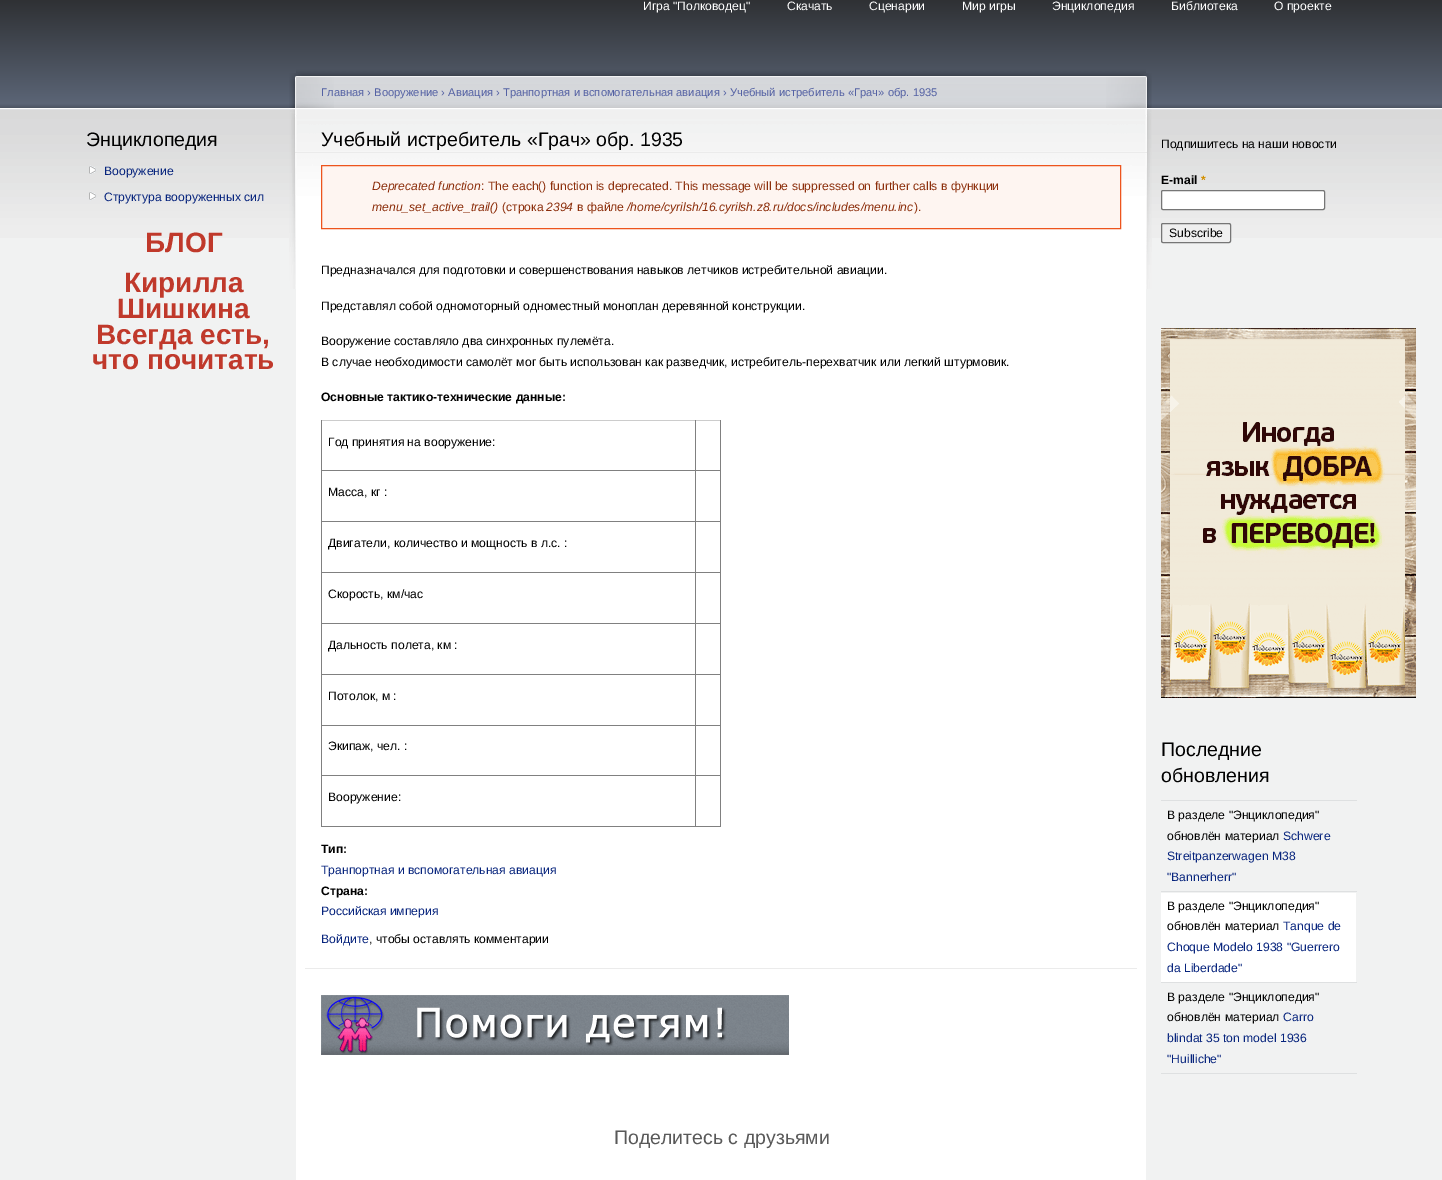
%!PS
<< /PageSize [1442 1180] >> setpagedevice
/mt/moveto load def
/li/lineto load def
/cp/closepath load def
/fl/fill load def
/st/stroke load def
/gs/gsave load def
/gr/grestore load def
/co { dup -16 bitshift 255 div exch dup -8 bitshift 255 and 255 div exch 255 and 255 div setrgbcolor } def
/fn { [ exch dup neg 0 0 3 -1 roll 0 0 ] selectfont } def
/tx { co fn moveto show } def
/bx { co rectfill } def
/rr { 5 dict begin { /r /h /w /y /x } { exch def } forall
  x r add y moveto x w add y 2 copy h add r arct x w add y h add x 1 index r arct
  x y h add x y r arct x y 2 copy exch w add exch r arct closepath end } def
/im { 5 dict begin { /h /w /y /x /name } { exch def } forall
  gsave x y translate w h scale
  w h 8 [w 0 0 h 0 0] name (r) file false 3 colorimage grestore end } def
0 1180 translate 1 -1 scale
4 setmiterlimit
0 0 1442 1180 16#F1F2F2 bx
(media/1.raw) 0 0 1442 238 im
(media/2.raw) 89 165 8 10 im
(media/3.raw) 89 191 8 10 im
296 229 850 951 16#FFFFFF bx
(media/4.raw) 296 67 850 98 im
(media/5.raw) 1106 73 46 216 im
(media/6.raw) 289 73 45 216 im
295 152 852 1 16#EBEBEB bx
16#FEF5F1 co
321.5 165.5 mt 1120.5 165.5 li 1120.5 228.5 li 321.5 228.5 li cp gs fl gr
16#ED541D co
st
305 968 832 1 16#EBEBEB bx
321 826 400 1 16#808080 bx
321 420 400 1 16#CCCCCC bx
695 775 1 52 16#808080 bx
720 420 1 407 16#808080 bx
695 775 26 1 16#808080 bx
695 725 1 51 16#808080 bx
695 725 26 1 16#808080 bx
695 674 1 52 16#808080 bx
695 674 26 1 16#808080 bx
695 623 1 52 16#808080 bx
695 623 26 1 16#808080 bx
695 572 1 52 16#808080 bx
695 572 26 1 16#808080 bx
695 521 1 52 16#808080 bx
695 521 26 1 16#808080 bx
695 470 1 52 16#808080 bx
695 470 26 1 16#808080 bx
695 420 1 51 16#808080 bx
321 775 1 52 16#808080 bx
321 775 375 1 16#808080 bx
321 725 1 51 16#808080 bx
321 725 375 1 16#808080 bx
321 674 1 52 16#808080 bx
321 674 375 1 16#808080 bx
321 623 1 52 16#808080 bx
321 623 375 1 16#808080 bx
321 572 1 52 16#808080 bx
321 572 375 1 16#808080 bx
321 521 1 52 16#808080 bx
321 521 375 1 16#808080 bx
321 470 1 52 16#808080 bx
321 470 375 1 16#808080 bx
321 420 1 51 16#808080 bx
(media/7.raw) 321 995 468 60 im
16#FFFFFF co
1161.5 190.5 163 19 1.5 rr gs fl gr
16#767676 co
st
16#EFEFEF co
1161.5 223.5 69 19 1.5 rr gs fl gr
16#767676 co
st
(media/8.raw) 1161 328 255 370 im
1161 800 196 1 16#DEE0E1 bx
1161 893 195 89 16#FFFFFF bx
1161 891 196 1 16#DEE0E1 bx
1161 982 196 1 16#DEE0E1 bx
1161 1073 196 1 16#DEE0E1 bx
(Игра "Полководец") 643 10 /LiberationSans-Regular 12.15 16#FFFFFF tx
(Скачать) 787 10 /LiberationSans-Regular 12.15 16#FFFFFF tx
(Сценарии) 869 10 /LiberationSans-Regular 12.15 16#FFFFFF tx
(Мир игры) 962 10 /LiberationSans-Regular 12.15 16#FFFFFF tx
(Энциклопедия) 1052 10 /LiberationSans-Regular 12.15 16#FFFFFF tx
(Библиотека) 1171 10 /LiberationSans-Regular 12.15 16#FFFFFF tx
(О проекте) 1274 10 /LiberationSans-Regular 12.15 16#FFFFFF tx
(Энциклопедия) 86 146 /LiberationSans-Regular 19.5 16#000000 tx
(Вооружение) 104 175 /LiberationSans-Regular 12.15 16#07247D tx
(Структура вооруженных сил) 104 201 /LiberationSans-Regular 12.15 16#07247D tx
(БЛОГ) 145 252 /LiberationSans-Bold 28 16#C0392B tx
(Кирилла) 124 292 /LiberationSans-Bold 28 16#C0392B tx
(Шишкина) 117 318 /LiberationSans-Bold 28 16#C0392B tx
(Всегда есть,) 96 344 /LiberationSans-Bold 28 16#C0392B tx
(что почитать) 92 369 /LiberationSans-Bold 28 16#C0392B tx
(Главная › Вооружение › Авиация › Транпортная и вспомогательная авиация › Учебный истребитель «Грач» обр. 1935) 321 96 /LiberationSans-Regular 11.2 16#5462A4 tx
(Учебный истребитель «Грач» обр. 1935) 321 146 /LiberationSans-Regular 19.5 16#000000 tx
(Deprecated function) 372 190 /LiberationSans-Italic 12.15 16#8C2E0B tx
(: The each\(\) function is deprecated. This message will be suppressed on further calls в функции) 481 190 /LiberationSans-Regular 12.15 16#8C2E0B tx
(menu_set_active_trail\(\)) 372 211 /LiberationSans-Italic 12.15 16#8C2E0B tx
(\(строка) 502 211 /LiberationSans-Regular 12.15 16#8C2E0B tx
(2394) 546 211 /LiberationSans-Italic 12.15 16#8C2E0B tx
(в файле) 577 211 /LiberationSans-Regular 12.15 16#8C2E0B tx
(/home/cyrilsh/16.cyrilsh.z8.ru/docs/includes/menu.inc) 627 211 /LiberationSans-Italic 12.15 16#8C2E0B tx
(\).) 914 211 /LiberationSans-Regular 12.15 16#8C2E0B tx
(Предназначался для подготовки и совершенствования навыков летчиков истребительной авиации.) 321 274 /LiberationSans-Regular 12.15 16#000000 tx
(Представлял собой одномоторный одноместный моноплан деревянной конструкции.) 321 310 /LiberationSans-Regular 12.15 16#000000 tx
(Вооружение составляло два синхронных пулемёта.) 321 345 /LiberationSans-Regular 12.15 16#000000 tx
(В случае необходимости самолёт мог быть использован как разведчик, истребитель-перехватчик или легкий штурмовик.) 321 366 /LiberationSans-Regular 12.15 16#000000 tx
(Основные тактико-технические данные:) 321 401 /LiberationSans-Bold 12.15 16#000000 tx
(Год принятия на вооружение:) 328 446 /LiberationSans-Regular 12.15 16#000000 tx
(Масса, кг :) 328 496 /LiberationSans-Regular 12.15 16#000000 tx
(Двигатели, количество и мощность в л.с. :) 328 547 /LiberationSans-Regular 12.15 16#000000 tx
(Скорость, км/час) 328 598 /LiberationSans-Regular 12.15 16#000000 tx
(Дальность полета, км :) 328 649 /LiberationSans-Regular 12.15 16#000000 tx
(Потолок, м :) 328 700 /LiberationSans-Regular 12.15 16#000000 tx
(Экипаж, чел. :) 328 750 /LiberationSans-Regular 12.15 16#000000 tx
(Вооружение:) 328 801 /LiberationSans-Regular 12.15 16#000000 tx
(Тип:) 321 853 /LiberationSans-Bold 12.15 16#000000 tx
(Транпортная и вспомогательная авиация) 321 874 /LiberationSans-Regular 12.15 16#07247D tx
(Страна:) 321 895 /LiberationSans-Bold 12.15 16#000000 tx
(Российская империя) 321 915 /LiberationSans-Regular 12.15 16#07247D tx
(Войдите) 321 943 /LiberationSans-Regular 12.15 16#07247D tx
(, чтобы оставлять комментарии) 369 943 /LiberationSans-Regular 12.15 16#000000 tx
(Поделитесь с друзьями) 614 1144 /LiberationSans-Regular 19.5 16#595959 tx
(Подпишитесь на наши новости) 1161 148 /LiberationSans-Regular 12.15 16#000000 tx
(E-mail) 1161 184 /LiberationSans-Bold 12.15 16#000000 tx
(*) 1201 184 /LiberationSans-Bold 12.15 16#D39000 tx
(Subscribe) 1169 237 /LiberationSans-Regular 12.15 16#000000 tx
(Последние) 1161 756 /LiberationSans-Regular 19.5 16#000000 tx
(обновления) 1161 782 /LiberationSans-Regular 19.5 16#000000 tx
(В разделе "Энциклопедия") 1167 819 /LiberationSans-Regular 12.15 16#000000 tx
(обновлён материал) 1167 840 /LiberationSans-Regular 12.15 16#000000 tx
(Schwere) 1283 840 /LiberationSans-Regular 12.15 16#07247D tx
(Streitpanzerwagen M38) 1167 860 /LiberationSans-Regular 12.15 16#07247D tx
("Bannerherr") 1167 881 /LiberationSans-Regular 12.15 16#07247D tx
(В разделе "Энциклопедия") 1167 910 /LiberationSans-Regular 12.15 16#000000 tx
(обновлён материал) 1167 930 /LiberationSans-Regular 12.15 16#000000 tx
(Tanque de) 1283 930 /LiberationSans-Regular 12.15 16#07247D tx
(Choque Modelo 1938 "Guerrero) 1167 951 /LiberationSans-Regular 12.15 16#07247D tx
(da Liberdade") 1167 972 /LiberationSans-Regular 12.15 16#07247D tx
(В разделе "Энциклопедия") 1167 1001 /LiberationSans-Regular 12.15 16#000000 tx
(обновлён материал) 1167 1021 /LiberationSans-Regular 12.15 16#000000 tx
(Carro) 1283 1021 /LiberationSans-Regular 12.15 16#07247D tx
(blindat 35 ton model 1936) 1167 1042 /LiberationSans-Regular 12.15 16#07247D tx
("Huilliche") 1167 1063 /LiberationSans-Regular 12.15 16#07247D tx
showpage
